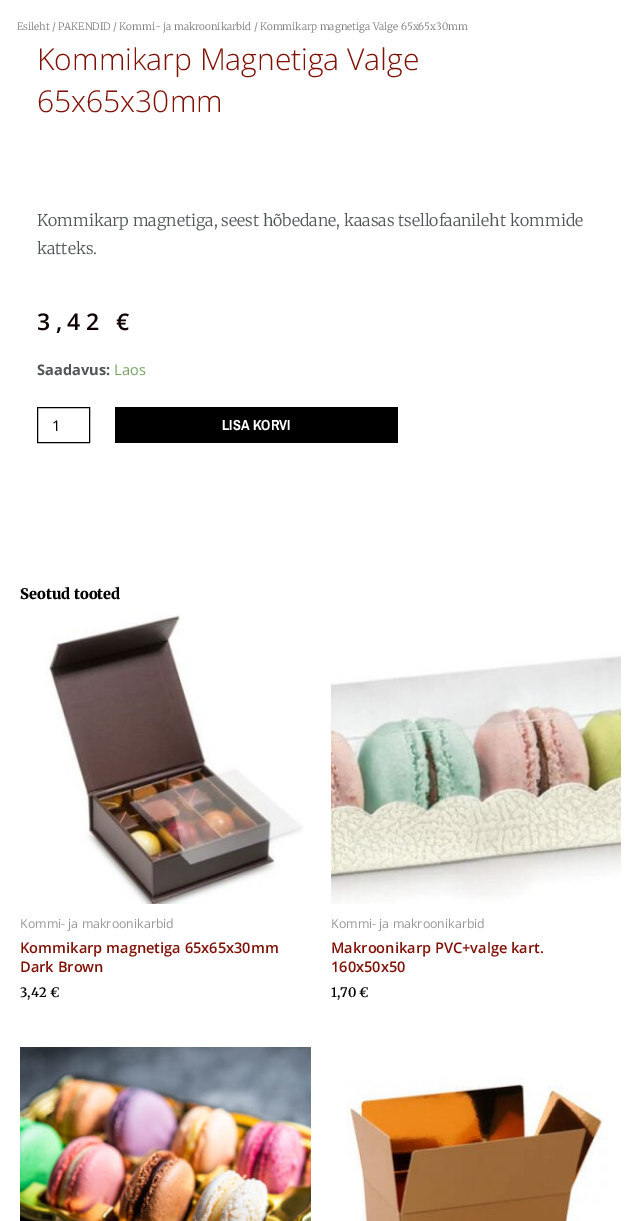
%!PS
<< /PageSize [641 1221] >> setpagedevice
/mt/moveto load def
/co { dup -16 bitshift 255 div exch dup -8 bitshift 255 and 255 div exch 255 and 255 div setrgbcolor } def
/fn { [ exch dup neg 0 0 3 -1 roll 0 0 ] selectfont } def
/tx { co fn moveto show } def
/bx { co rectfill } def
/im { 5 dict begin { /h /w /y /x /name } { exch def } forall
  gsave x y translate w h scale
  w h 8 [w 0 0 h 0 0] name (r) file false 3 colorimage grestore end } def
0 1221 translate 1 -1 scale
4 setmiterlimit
0 0 641 1221 16#FFFFFF bx
16#000000 co
37.5 407.5 52 35 rectstroke
115 407 283 36 16#000000 bx
(media/1.raw) 45 614 259 290 im
(media/2.raw) 331 655 290 249 im
(media/3.raw) 20 1047 291 174 im
(media/4.raw) 347 1078 262 143 im
(Esileht / PAKENDID / Kommi- ja makroonikarbid / Kommikarp magnetiga Valge 65x65x30mm) 17 30 /Merriweather-Light 10 16#7A7A7A tx
(Kommikarp Magnetiga Valge) 37 70 /OpenSans-Light 30 16#801106 tx
(65x65x30mm) 37 112 /OpenSans-Light 30 16#801106 tx
(Kommikarp magnetiga, seest hõbedane, kaasas tsellofaanileht kommide) 37 226 /Merriweather-Light 16 16#4F5655 tx
(katteks.) 37 254 /Merriweather-Light 16 16#4F5655 tx
/OpenSans-SemiBold 23 fn
16#0E0101 co
37 330 mt 5.5 0 (3,42 €) ashow
(Saadavus:) 37 375 /OpenSans-Bold 14.6 16#4F5655 tx
(Laos) 114 375 /OpenSans-Regular 14.6 16#77A464 tx
(1) 52 431 /OpenSans-Regular 14.6 16#000000 tx
(LISA KORVI) 222 430 /ArchivoNarrow-Bold 14.6 16#FFFFFF tx
(Seotud tooted) 20 599 /Merriweather-Black 14.6 16#000000 tx
(Kommi- ja makroonikarbid) 20 928 /OpenSans-Regular 12.4 16#959A99 tx
(Kommikarp magnetiga 65x65x30mm) 20 953 /OpenSans-SemiBold 14.6 16#801106 tx
(Dark Brown) 20 972 /OpenSans-SemiBold 14.6 16#801106 tx
(3,42 €) 20 997 /Merriweather-SemiBold 13 16#000000 tx
(Kommi- ja makroonikarbid) 331 928 /OpenSans-Regular 12.4 16#959A99 tx
(Makroonikarp PVC+valge kart.) 331 953 /OpenSans-SemiBold 14.6 16#801106 tx
(160x50x50) 331 972 /OpenSans-SemiBold 14.6 16#801106 tx
(1,70 €) 331 997 /Merriweather-SemiBold 13 16#000000 tx
showpage
